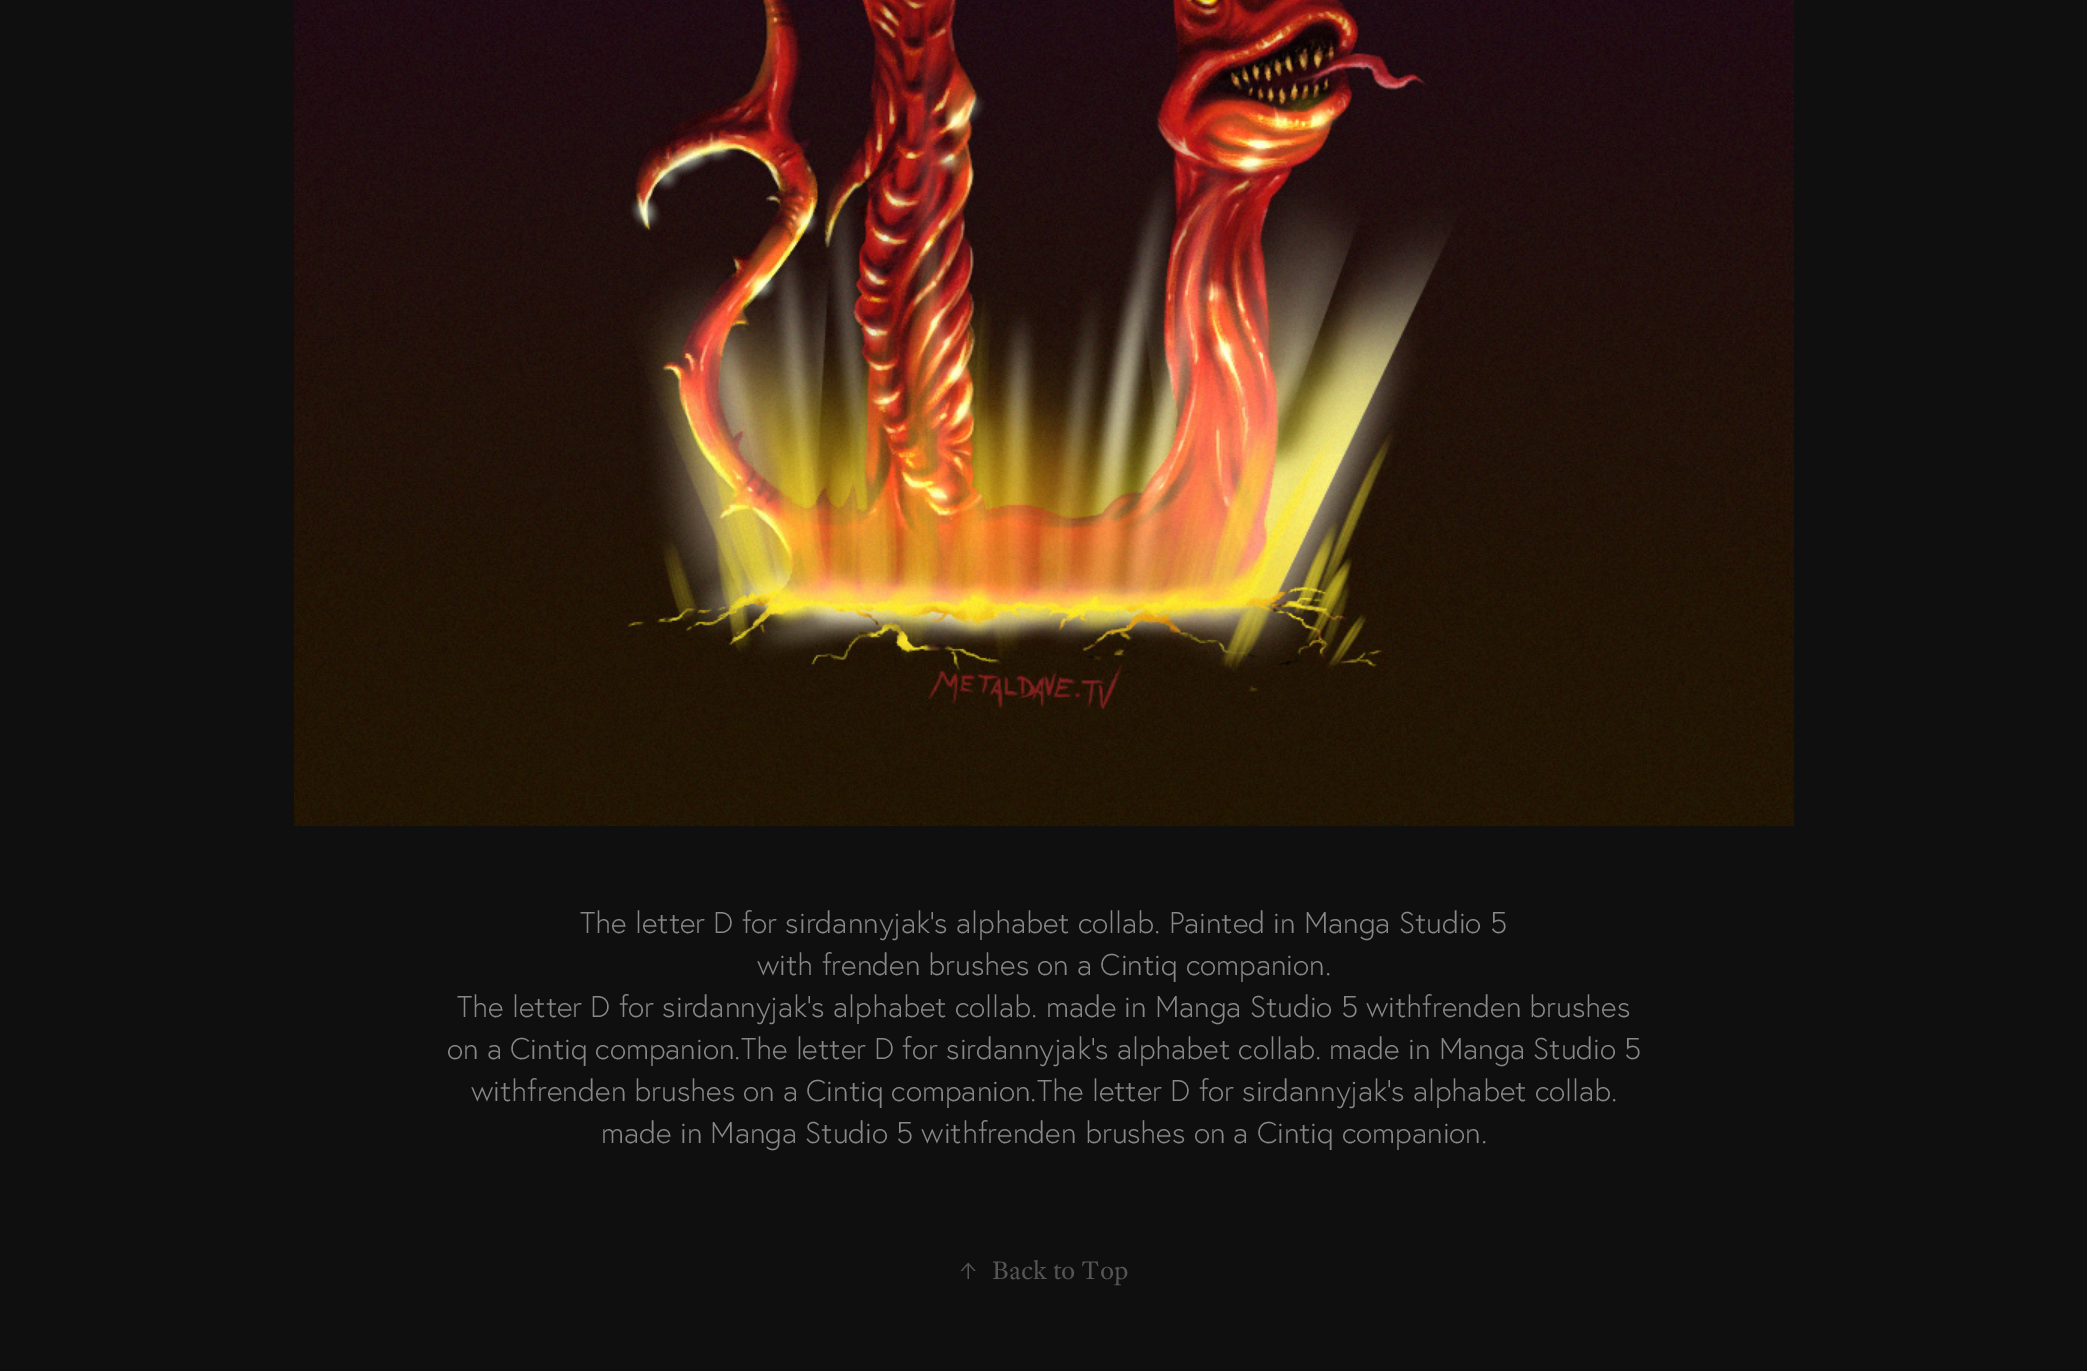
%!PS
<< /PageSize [2087 1371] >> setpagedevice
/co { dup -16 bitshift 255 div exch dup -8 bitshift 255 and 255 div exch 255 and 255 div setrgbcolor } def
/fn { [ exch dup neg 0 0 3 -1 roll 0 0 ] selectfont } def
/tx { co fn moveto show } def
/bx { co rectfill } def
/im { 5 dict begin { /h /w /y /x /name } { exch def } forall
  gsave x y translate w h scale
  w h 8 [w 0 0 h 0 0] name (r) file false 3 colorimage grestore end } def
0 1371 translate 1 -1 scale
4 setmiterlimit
0 0 2087 1371 16#0F0F0F bx
(media/1.raw) 294 0 1500 826 im
(The letter D for sirdannyjak's alphabet collab. Painted in Manga Studio 5) 580 933 /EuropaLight-Light 30 16#888888 tx
(with frenden brushes on a Cintiq companion.) 757 975 /EuropaLight-Light 30 16#888888 tx
(The letter D for sirdannyjak's alphabet collab. made in Manga Studio 5 withfrenden brushes) 457 1017 /EuropaLight-Light 30 16#888888 tx
(on a Cintiq companion.The letter D for sirdannyjak's alphabet collab. made in Manga Studio 5) 447 1059 /EuropaLight-Light 30 16#888888 tx
(withfrenden brushes on a Cintiq companion.The letter D for sirdannyjak's alphabet collab.) 471 1101 /EuropaLight-Light 30 16#888888 tx
(made in Manga Studio 5 withfrenden brushes on a Cintiq companion.) 601 1143 /EuropaLight-Light 30 16#888888 tx
(↑) 959 1279 /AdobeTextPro-Regular 27 16#555555 tx
(Back to Top) 992 1279 /AdobeTextPro-Regular 27 16#555555 tx
showpage
